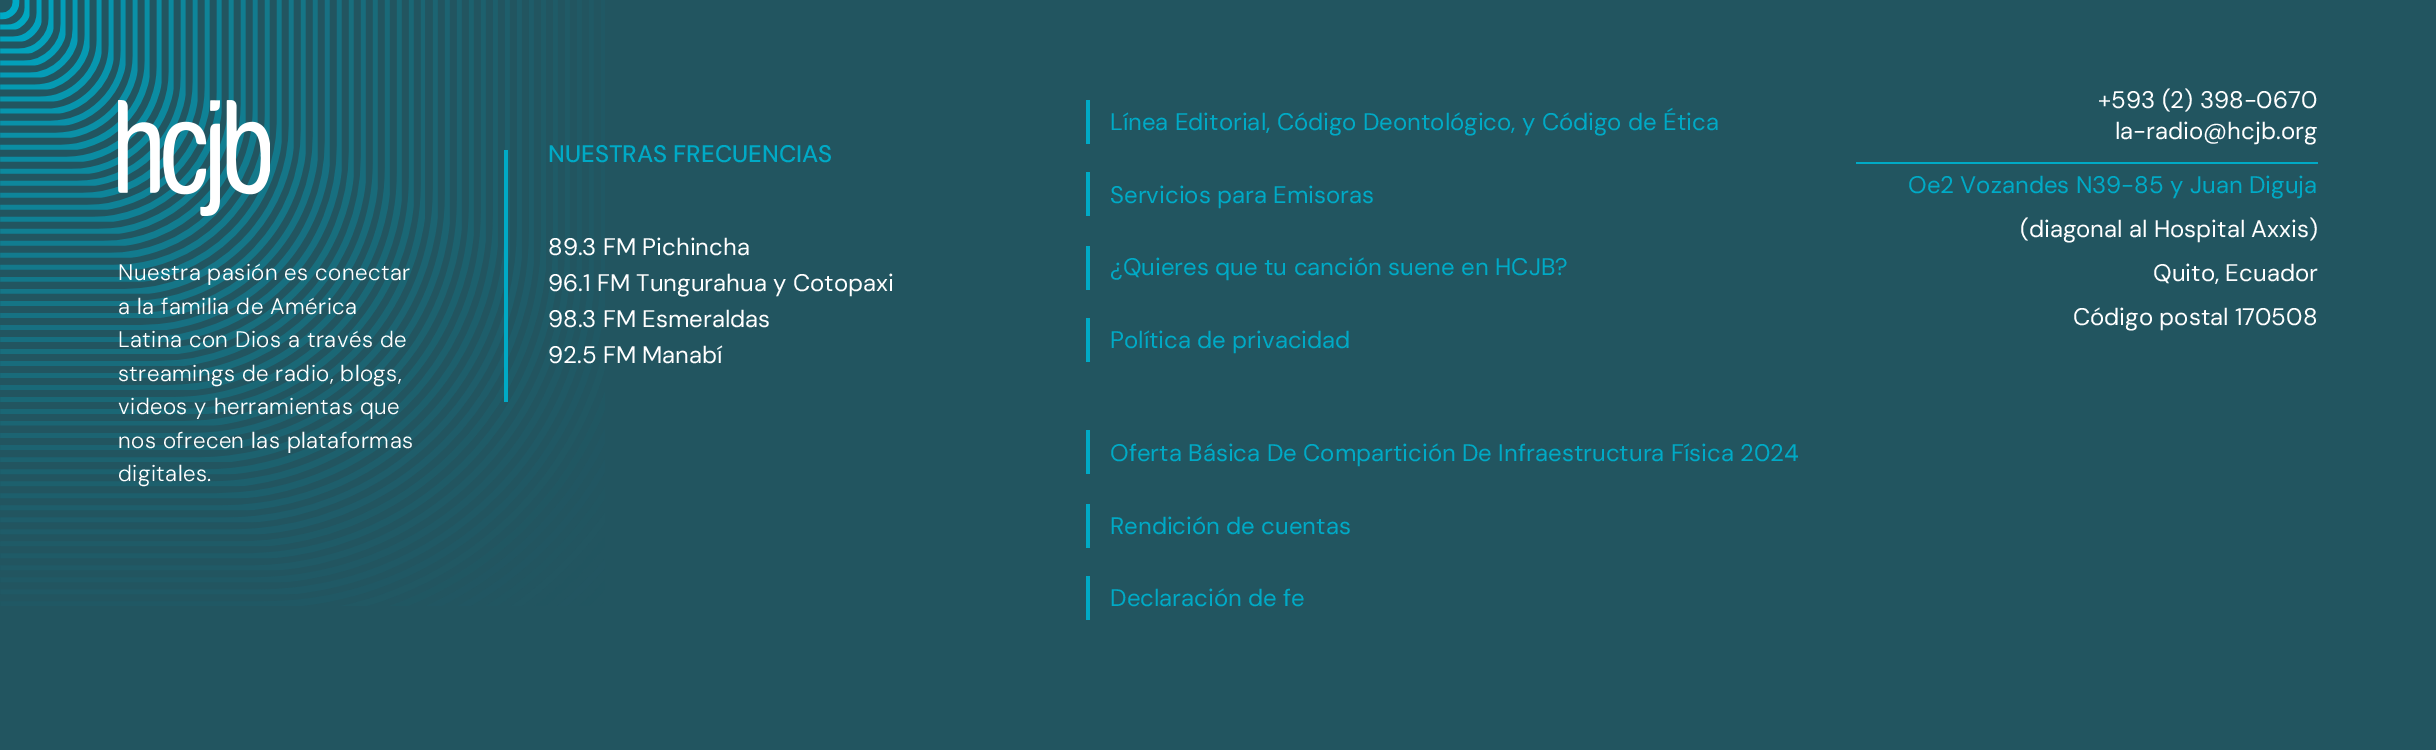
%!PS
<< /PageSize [2436 750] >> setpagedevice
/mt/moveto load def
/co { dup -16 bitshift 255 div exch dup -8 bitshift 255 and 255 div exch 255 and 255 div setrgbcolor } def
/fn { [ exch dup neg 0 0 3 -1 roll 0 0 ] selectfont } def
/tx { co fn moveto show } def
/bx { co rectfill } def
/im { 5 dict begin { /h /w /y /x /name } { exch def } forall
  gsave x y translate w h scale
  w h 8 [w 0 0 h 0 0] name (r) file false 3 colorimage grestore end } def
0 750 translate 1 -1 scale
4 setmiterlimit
0 0 2436 750 16#225560 bx
(media/1.raw) 0 0 605 606 im
(media/2.raw) 118 100 152 116 im
504 150 4 252 16#00AAC6 bx
1086 100 4 44 16#00AAC6 bx
1086 172 4 44 16#00AAC6 bx
1086 246 4 44 16#00AAC6 bx
1086 318 4 44 16#00AAC6 bx
1086 430 4 44 16#00AAC6 bx
1086 504 4 44 16#00AAC6 bx
1086 576 4 44 16#00AAC6 bx
1856 162 462 2 16#00AAC6 bx
/DMSans-Light 22.4 fn
16#FFFFFF co
118 280 mt .4 0 (Nuestra pasión es conectar) ashow
118 314 mt .4 0 (a la familia de América) ashow
118 347 mt .4 0 (Latina con Dios a través de) ashow
118 381 mt .4 0 (streamings de radio, blogs,) ashow
118 414 mt .4 0 (videos y herramientas que) ashow
118 448 mt .4 0 (nos ofrecen las plataformas) ashow
118 481 mt .4 0 (digitales.) ashow
(NUESTRAS FRECUENCIAS) 548 162 /DMSans-Medium 24 16#00AAC6 tx
(89.3 FM Pichincha) 548 255 /DMSans-Regular 24 16#FFFFFF tx
(96.1 FM Tungurahua y Cotopaxi) 548 291 /DMSans-Regular 24 16#FFFFFF tx
(98.3 FM Esmeraldas) 548 327 /DMSans-Regular 24 16#FFFFFF tx
(92.5 FM Manabí) 548 363 /DMSans-Regular 24 16#FFFFFF tx
(Línea Editorial, Código Deontológico, y Código de Ética) 1110 130 /DMSans-Regular 24 16#00AAC6 tx
(Servicios para Emisoras) 1110 203 /DMSans-Regular 24 16#00AAC6 tx
(¿Quieres que tu canción suene en HCJB?) 1110 275 /DMSans-Regular 24 16#00AAC6 tx
(Política de privacidad) 1110 348 /DMSans-Regular 24 16#00AAC6 tx
(Oferta Básica De Compartición De Infraestructura Física 2024) 1110 461 /DMSans-Regular 24 16#00AAC6 tx
(Rendición de cuentas) 1110 534 /DMSans-Regular 24 16#00AAC6 tx
(Declaración de fe) 1110 606 /DMSans-Regular 24 16#00AAC6 tx
(+593 \(2\) 398-0670) 2098 108 /DMSans-Regular 24 16#FFFFFF tx
(la-radio@hcjb.org) 2115 139 /DMSans-Regular 24 16#FFFFFF tx
(Oe2 Vozandes N39-85 y Juan Diguja) 1908 193 /DMSans-Regular 24 16#00AAC6 tx
(\(diagonal al Hospital Axxis\)) 2020 237 /DMSans-Regular 24 16#FFFFFF tx
(Quito, Ecuador) 2153 281 /DMSans-Regular 24 16#FFFFFF tx
(Código postal 170508) 2073 325 /DMSans-Regular 24 16#FFFFFF tx
showpage
